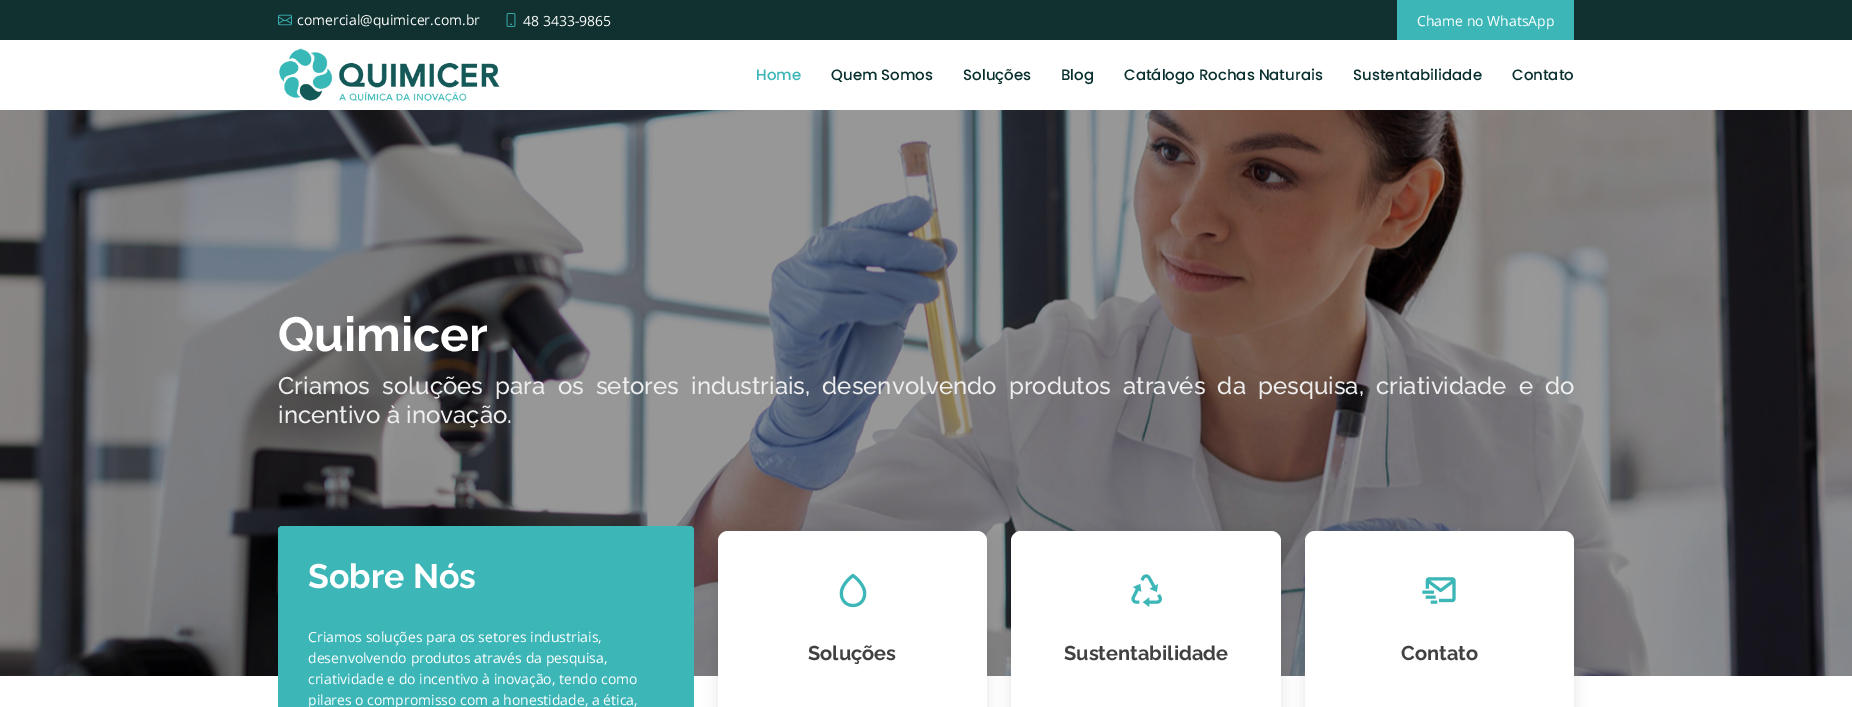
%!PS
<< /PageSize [1852 707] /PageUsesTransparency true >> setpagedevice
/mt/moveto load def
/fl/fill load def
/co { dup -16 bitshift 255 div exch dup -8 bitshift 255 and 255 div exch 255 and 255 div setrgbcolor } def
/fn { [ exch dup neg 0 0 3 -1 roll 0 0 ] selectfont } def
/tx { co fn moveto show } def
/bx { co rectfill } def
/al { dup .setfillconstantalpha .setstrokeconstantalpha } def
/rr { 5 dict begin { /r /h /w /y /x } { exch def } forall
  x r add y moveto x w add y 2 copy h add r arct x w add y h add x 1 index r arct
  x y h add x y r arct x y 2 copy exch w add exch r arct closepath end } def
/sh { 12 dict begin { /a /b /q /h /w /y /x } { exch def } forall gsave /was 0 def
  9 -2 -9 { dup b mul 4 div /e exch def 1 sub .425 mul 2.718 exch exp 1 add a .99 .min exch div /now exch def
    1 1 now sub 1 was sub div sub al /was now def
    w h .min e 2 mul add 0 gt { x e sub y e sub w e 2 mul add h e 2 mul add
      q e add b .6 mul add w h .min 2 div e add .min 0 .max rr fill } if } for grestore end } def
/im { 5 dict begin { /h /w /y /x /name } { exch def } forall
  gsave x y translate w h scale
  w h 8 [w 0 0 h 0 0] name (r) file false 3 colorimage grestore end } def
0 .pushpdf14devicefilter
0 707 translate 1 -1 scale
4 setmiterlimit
0 0 1852 707 16#FFFFFF bx
0 0 1852 40 16#113131 bx
(media/1.raw) 278 14 14 12 im
(media/2.raw) 506 13 10 14 im
1397 0 177 40 16#3CB6B7 bx
(media/3.raw) 279 48 221 54 im
(media/4.raw) 0 110 1852 566 im
278 526 416 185 4 rr fl
16#000000 co
718 533 269 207 10 7.5 .1 sh
16#FFFFFF co
718 531 269 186 10 rr fl
(media/5.raw) 839 573 28 35 im
16#000000 co
1011 533 270 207 10 7.5 .1 sh
16#FFFFFF co
1011 531 270 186 10 rr fl
(media/6.raw) 1131 574 31 33 im
16#000000 co
1305 533 269 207 10 7.5 .1 sh
16#FFFFFF co
1305 531 269 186 10 rr fl
(media/7.raw) 1422 577 34 27 im
(comercial@quimicer.com.br) 297 25 /OpenSans-Regular 14 16#FFFFFF tx
(48 3433-9865) 523 26 /OpenSans-Regular 14 16#FFFFFF tx
(Chame no WhatsApp) 1417 26 /OpenSans-Regular 14 16#FFFFFF tx
(Home) 756 80 /Poppins-Medium 15 16#3CB6B7 tx
(Quem Somos) 831 80 /Poppins-Medium 15 16#082F2E tx
(Soluções) 963 80 /Poppins-Medium 15 16#082F2E tx
(Blog) 1061 80 /Poppins-Medium 15 16#082F2E tx
(Catálogo Rochas Naturais) 1124 80 /Poppins-Medium 15 16#082F2E tx
(Sustentabilidade) 1353 80 /Poppins-Medium 15 16#082F2E tx
(Contato) 1512 80 /Poppins-Medium 15 16#082F2E tx
(Quimicer) 278 351 /Raleway-Bold 48 16#FFFFFF tx
/Raleway-Medium 24 fn
16#EEEEEE co
278 394 mt 6 0 32 (Criamos soluções para os setores industriais, desenvolvendo produtos através da pesquisa, criatividade e do) widthshow
(incentivo à inovação.) 278 423 /Raleway-Medium 24 16#EEEEEE tx
(Sobre Nós) 308 588 /Raleway-Bold 34 16#FFFFFF tx
(Criamos soluções para os setores industriais,) 308 642 /OpenSans-Regular 14 16#FFFFFF tx
(desenvolvendo produtos através da pesquisa,) 308 663 /OpenSans-Regular 14 16#FFFFFF tx
(criatividade e do incentivo à inovação, tendo como) 308 684 /OpenSans-Regular 14 16#FFFFFF tx
(pilares o compromisso com a honestidade, a ética,) 308 705 /OpenSans-Regular 14 16#FFFFFF tx
(Soluções) 808 660 /Raleway-Bold 20 16#414141 tx
(Sustentabilidade) 1064 660 /Raleway-Bold 20 16#414141 tx
(Contato) 1401 660 /Raleway-Bold 20 16#414141 tx
.poppdf14devicefilter showpage
